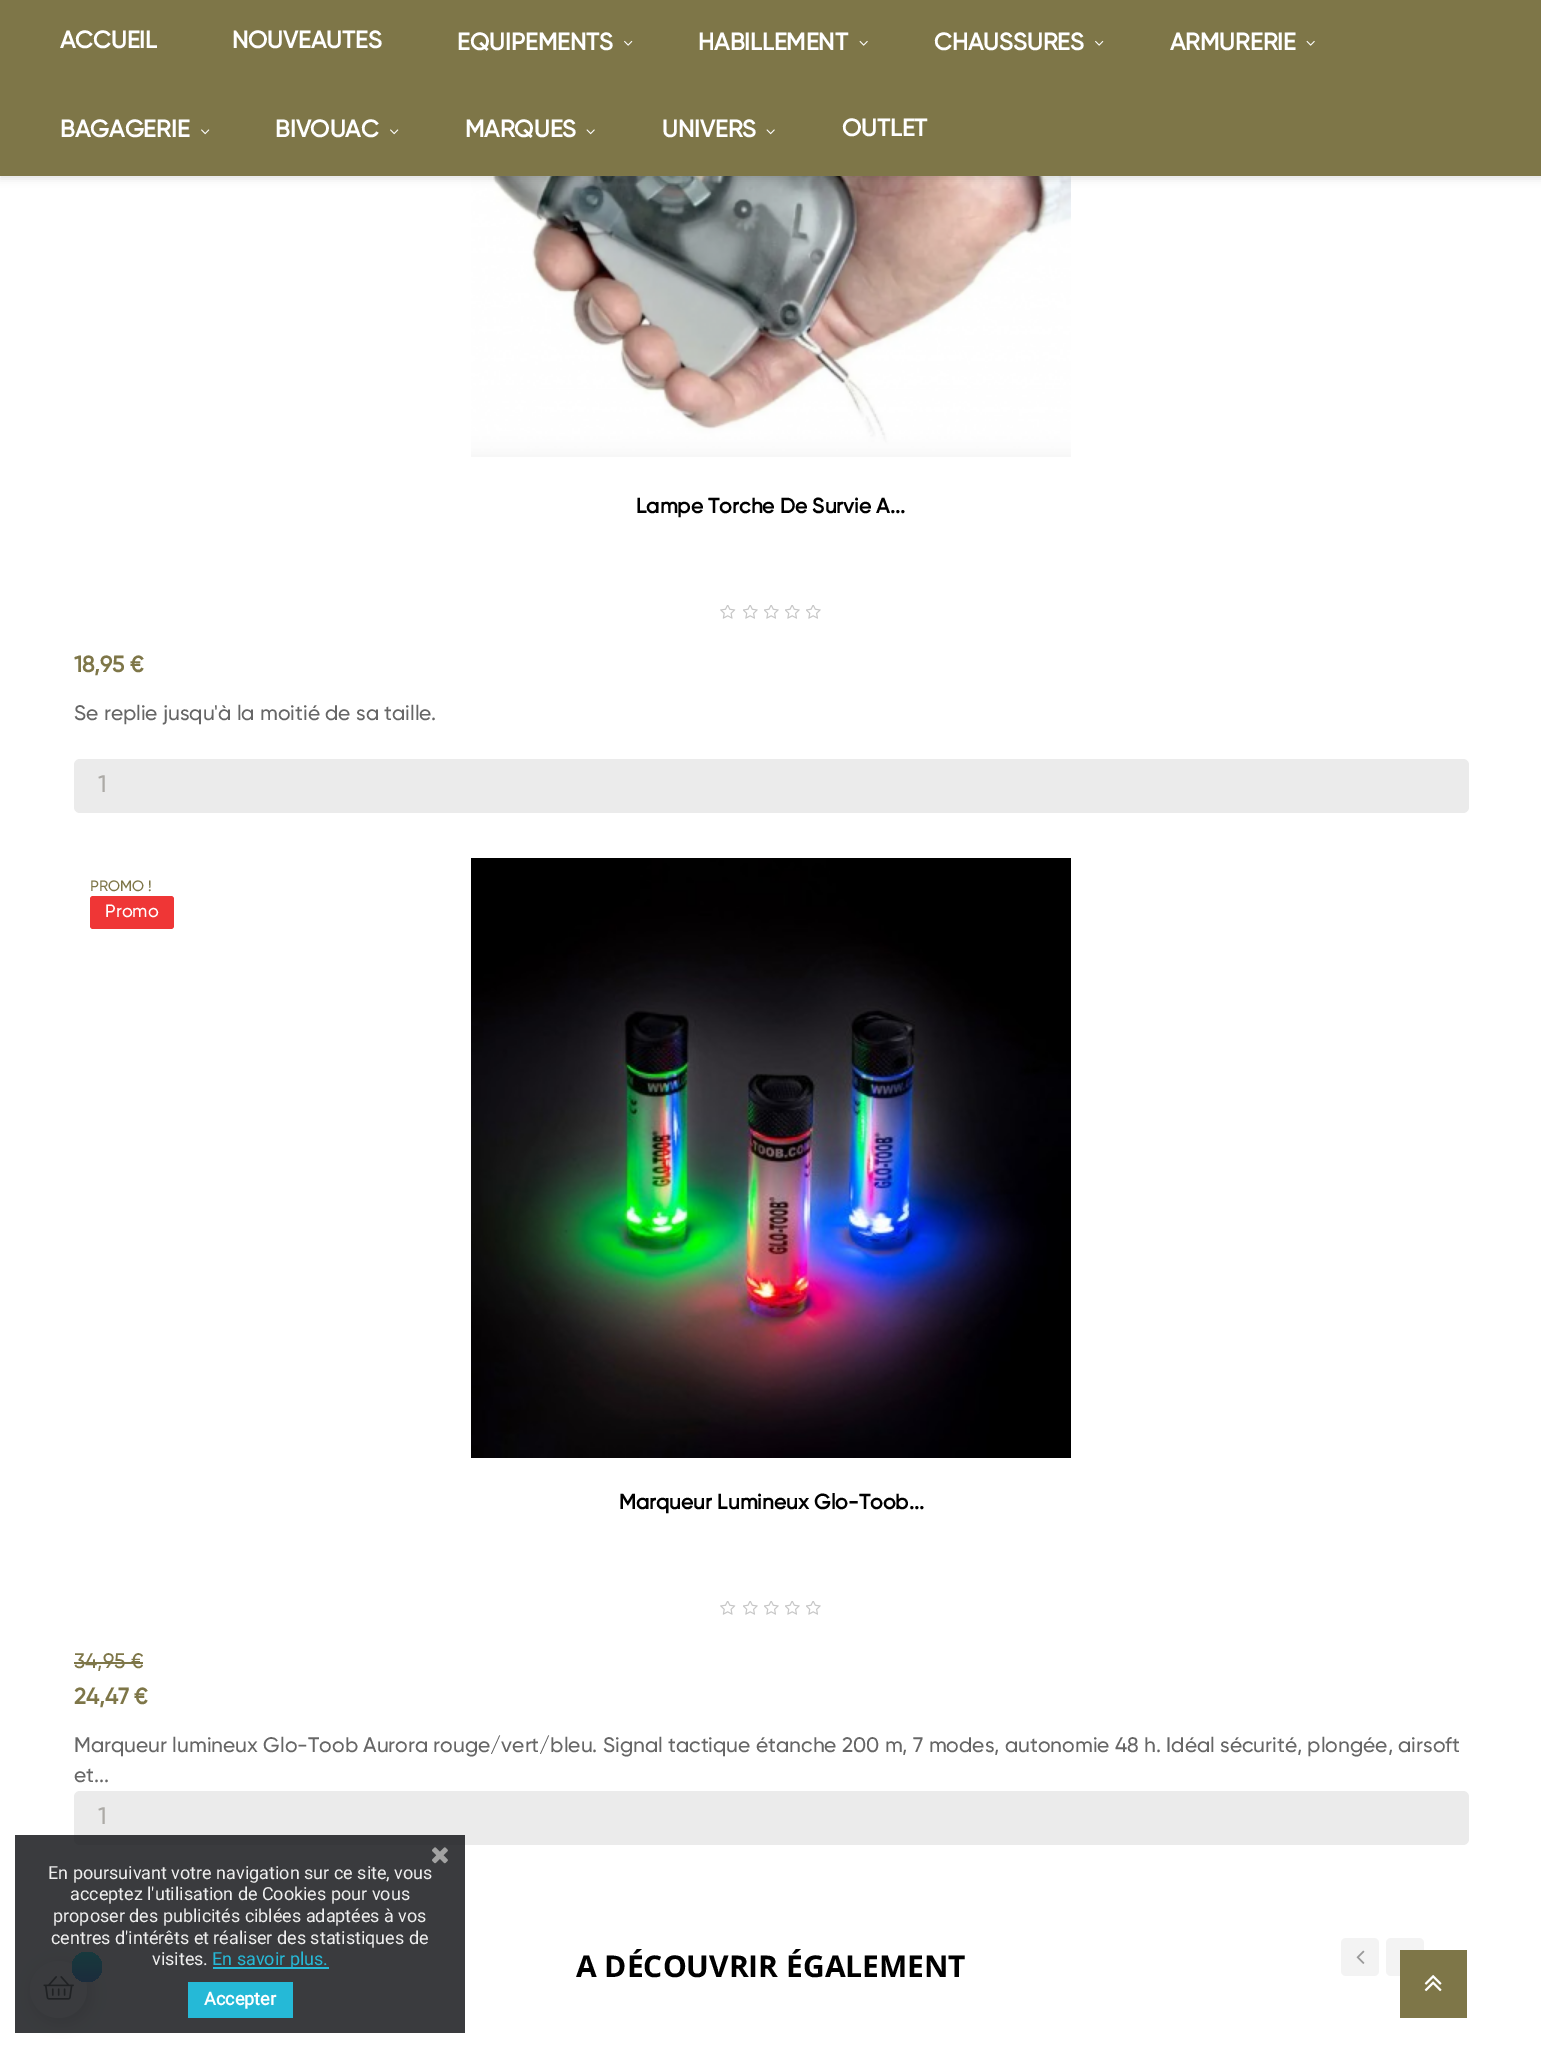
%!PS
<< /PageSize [1541 2047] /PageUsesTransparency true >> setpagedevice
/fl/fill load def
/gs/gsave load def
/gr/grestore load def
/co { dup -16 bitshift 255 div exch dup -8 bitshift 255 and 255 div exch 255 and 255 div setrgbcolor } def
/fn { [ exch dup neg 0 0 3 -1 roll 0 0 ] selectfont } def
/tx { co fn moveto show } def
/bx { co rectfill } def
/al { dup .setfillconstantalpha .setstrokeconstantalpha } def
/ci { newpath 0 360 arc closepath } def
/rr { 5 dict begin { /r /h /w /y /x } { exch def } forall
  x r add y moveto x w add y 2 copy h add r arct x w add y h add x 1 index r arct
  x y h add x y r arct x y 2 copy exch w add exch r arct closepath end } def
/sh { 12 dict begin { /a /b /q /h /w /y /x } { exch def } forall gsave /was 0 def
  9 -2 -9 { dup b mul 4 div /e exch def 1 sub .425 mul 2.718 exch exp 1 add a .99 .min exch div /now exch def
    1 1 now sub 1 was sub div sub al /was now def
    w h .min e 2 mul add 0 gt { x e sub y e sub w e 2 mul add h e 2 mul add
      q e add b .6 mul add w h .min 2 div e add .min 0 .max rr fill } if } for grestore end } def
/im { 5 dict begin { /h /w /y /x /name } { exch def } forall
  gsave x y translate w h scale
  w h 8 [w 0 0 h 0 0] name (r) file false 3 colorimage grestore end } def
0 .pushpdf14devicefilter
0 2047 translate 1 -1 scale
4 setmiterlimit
0 0 1541 2047 16#FFFFFF bx
(media/5.raw) 471 176 600 281 im
16#000000 co
0 3 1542 176 0 4 .11 sh
0 0 1541 176 16#7E7648 bx
(media/1.raw) 624 40 9 6 im
(media/2.raw) 859 40 9 6 im
(media/1.raw) 1095 40 9 6 im
(media/2.raw) 1306 40 9 6 im
(media/3.raw) 201 129 9 6 im
(media/3.raw) 390 129 9 6 im
(media/4.raw) 586 129 9 6 im
(media/4.raw) 766 129 9 6 im
(media/6.raw) 720 605 16 14 im
(media/7.raw) 743 605 15 14 im
(media/7.raw) 764 605 15 14 im
(media/7.raw) 785 605 15 14 im
(media/7.raw) 806 605 15 14 im
16#EBEBEB co
74 759 1395 54 6 rr fl
16#EF3636 co
90 896 84 33 3 rr fl
(media/8.raw) 471 858 600 600 im
(media/6.raw) 720 1601 16 14 im
(media/7.raw) 743 1601 15 14 im
(media/7.raw) 764 1601 15 14 im
(media/7.raw) 785 1601 15 14 im
(media/7.raw) 806 1601 15 14 im
74 1662 69 2 16#7E7648 bx
16#EBEBEB co
74 1791 1395 54 6 rr fl
16#F3F3F3 co
1341 1938 38 38 5 rr fl
(media/9.raw) 1356 1950 9 14 im
1386 1938 38 38 5 rr fl
1400 1950 67 68 16#7E7648 bx
(media/10.raw) 1424 1975 18 17 im
16#000000 co
33 1965 57 57 28.5 7.5 .15 sh
16#FFFFFF co
58.5 1989.5 28.5 ci fl
(media/12.raw) 43 1976 31 24 im
gs 87 1967 15 ci clip newpath
<< /ShadingType 2 /ColorSpace /DeviceRGB /Coords [87 1952 87 1982] /Extend [true true] /Function << /FunctionType 2 /Domain [0 1] /C0 [.082 .945 .976] /C1 [.208 .588 .945] /N 1 >> >> shfill gr
0.85 al
15 1835 450 198 16#17191C bx
1 al
(media/11.raw) 432 1847 16 17 im
213 1967 116 2 16#25B9D7 bx
188 1982 105 36 16#25B9D7 bx
(ACCUEIL) 60 48 /Gilroy-Bold 24 16#FFFFFF tx
(NOUVEAUTES) 232 48 /Gilroy-Bold 24 16#FFFFFF tx
(EQUIPEMENTS) 457 50 /Gilroy-Bold 24 16#FFFFFF tx
(HABILLEMENT) 698 50 /Gilroy-Bold 24 16#FFFFFF tx
(CHAUSSURES) 934 50 /Gilroy-Bold 24 16#FFFFFF tx
(ARMURERIE) 1170 50 /Gilroy-Bold 24 16#FFFFFF tx
(BAGAGERIE) 60 137 /Gilroy-Bold 24 16#FFFFFF tx
(BIVOUAC) 275 137 /Gilroy-Bold 24 16#FFFFFF tx
(MARQUES) 465 137 /Gilroy-Bold 24 16#FFFFFF tx
(UNIVERS) 662 137 /Gilroy-Bold 24 16#FFFFFF tx
(OUTLET) 842 136 /Gilroy-Bold 24 16#FFFFFF tx
(Lampe Torche De Survie A...) 636 513 /Gilroy-Bold 21 16#000000 tx
(18,95 €) 74 672 /Gilroy-Bold 22.5 16#7E7648 tx
(Se replie jusqu'à la moitié de sa taille.) 74 720 /Gilroy-Medium 21 16#666666 tx
(1) 98 792 /Gilroy-Medium 24 16#ACAAA6 tx
(PROMO !) 90 891 /Gilroy-Medium 15 16#7E7648 tx
(Promo) 105 917 /Gilroy-Medium 18 16#FFFFFF tx
(Marqueur Lumineux Glo-Toob...) 619 1509 /Gilroy-Bold 21 16#000000 tx
(34,95 €) 74 1668 /Gilroy-Medium 21 16#7E7648 tx
(24,47 €) 74 1704 /Gilroy-Bold 22.5 16#7E7648 tx
(Marqueur lumineux Glo-Toob Aurora rouge/vert/bleu. Signal tactique étanche 200 m, 7 modes, autonomie 48 h. Idéal sécurité, plongée, airsoft) 74 1752 /Gilroy-Medium 21 16#666666 tx
(et...) 74 1782 /Gilroy-Medium 21 16#666666 tx
(1) 98 1824 /Gilroy-Medium 24 16#ACAAA6 tx
(A DÉCOUVRIR ÉGALEMENT) 576 1977 /OpenSans-Bold 30 16#000000 tx
(En poursuivant votre navigation sur ce site, vous) 48 1879 /Roboto-Regular 18 16#EFEFEF tx
(acceptez l'utilisation de Cookies pour vous) 70 1900 /Roboto-Regular 18 16#EFEFEF tx
(proposer des publicités ciblées adaptées à vos) 53 1922 /Roboto-Regular 18 16#EFEFEF tx
(centres d'intérêts et réaliser des statistiques de) 51 1944 /Roboto-Regular 18 16#EFEFEF tx
(visites.) 152 1965 /Roboto-Regular 18 16#EFEFEF tx
(En savoir plus.) 212 1965 /Roboto-Regular 18 16#25B9D7 tx
(Accepter) 204 2005 /Roboto-Bold 18 16#FFFFFF tx
.poppdf14devicefilter showpage
